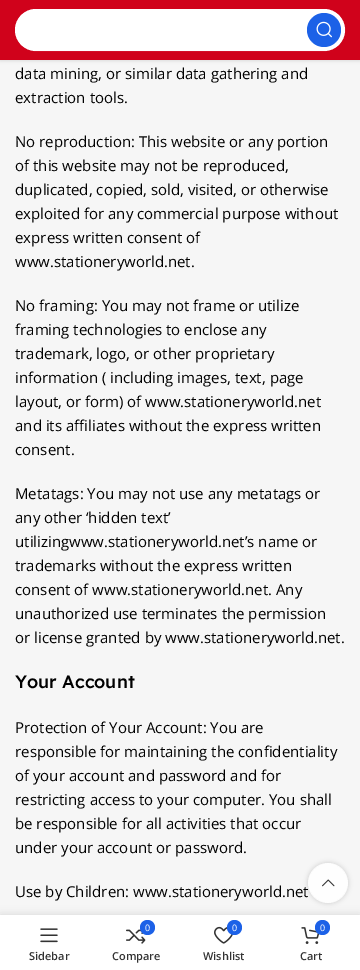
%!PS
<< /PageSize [360 970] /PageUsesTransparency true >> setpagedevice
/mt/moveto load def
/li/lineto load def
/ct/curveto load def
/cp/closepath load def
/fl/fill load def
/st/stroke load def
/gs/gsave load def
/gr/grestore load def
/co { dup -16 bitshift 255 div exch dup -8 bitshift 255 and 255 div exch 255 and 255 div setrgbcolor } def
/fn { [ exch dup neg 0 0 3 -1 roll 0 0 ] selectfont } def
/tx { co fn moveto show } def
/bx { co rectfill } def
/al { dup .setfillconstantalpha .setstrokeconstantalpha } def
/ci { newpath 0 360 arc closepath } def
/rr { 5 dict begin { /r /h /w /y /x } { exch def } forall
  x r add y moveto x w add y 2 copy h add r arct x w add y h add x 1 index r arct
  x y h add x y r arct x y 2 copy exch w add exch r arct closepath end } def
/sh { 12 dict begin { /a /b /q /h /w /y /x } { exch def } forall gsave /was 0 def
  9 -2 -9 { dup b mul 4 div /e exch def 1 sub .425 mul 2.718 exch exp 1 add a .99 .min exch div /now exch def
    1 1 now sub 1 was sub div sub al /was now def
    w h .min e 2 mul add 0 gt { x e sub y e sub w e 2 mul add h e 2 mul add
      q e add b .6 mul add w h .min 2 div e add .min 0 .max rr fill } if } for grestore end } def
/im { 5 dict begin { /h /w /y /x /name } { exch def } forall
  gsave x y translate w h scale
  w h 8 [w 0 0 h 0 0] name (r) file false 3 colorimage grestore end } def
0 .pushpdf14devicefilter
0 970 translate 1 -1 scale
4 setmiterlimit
0 0 360 970 16#F6F6F6 bx
16#000000 co
0 1 360 60 0 1.5 .1 sh
0 0 360 60 16#D0021B bx
16#FFFFFF co
15 9 330 42 21 rr fl
0.2 al
15.5 9.5 329 41 20.5 rr st
1 al
16#1C61E7 co
324 30 17 ci fl
(media/1.raw) 316 21 16 17 im
gs
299 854 mt 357 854 li 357 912 li 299 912 li cp 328 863 mt 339 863 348 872 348 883 ct 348 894 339 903 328 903 ct 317 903 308 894 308 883 ct 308 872 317 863 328 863 ct cp eoclip newpath
16#000000 co
308 863 40 40 20 2.5 .17 sh
gr
(data mining, or similar data gathering and) 15 79 /OpenSans-Regular 15 16#000000 tx
(extraction tools.) 15 103 /OpenSans-Regular 15 16#000000 tx
(No reproduction: This website or any portion) 15 147 /OpenSans-Regular 15 16#000000 tx
(of this website may not be reproduced,) 15 171 /OpenSans-Regular 15 16#000000 tx
(duplicated, copied, sold, visited, or otherwise) 15 195 /OpenSans-Regular 15 16#000000 tx
(exploited for any commercial purpose without) 15 219 /OpenSans-Regular 15 16#000000 tx
(express written consent of) 15 243 /OpenSans-Regular 15 16#000000 tx
(www.stationeryworld.net.) 15 267 /OpenSans-Regular 15 16#000000 tx
(No framing: You may not frame or utilize) 15 311 /OpenSans-Regular 15 16#000000 tx
(framing technologies to enclose any) 15 335 /OpenSans-Regular 15 16#000000 tx
(trademark, logo, or other proprietary) 15 359 /OpenSans-Regular 15 16#000000 tx
(information \( including images, text, page) 15 383 /OpenSans-Regular 15 16#000000 tx
(layout, or form\) of www.stationeryworld.net) 15 407 /OpenSans-Regular 15 16#000000 tx
(and its affiliates without the express written) 15 431 /OpenSans-Regular 15 16#000000 tx
(consent.) 15 455 /OpenSans-Regular 15 16#000000 tx
(Metatags: You may not use any metatags or) 15 499 /OpenSans-Regular 15 16#000000 tx
(any other ‘hidden text’) 15 523 /OpenSans-Regular 15 16#000000 tx
(utilizingwww.stationeryworld.net’s name or) 15 547 /OpenSans-Regular 15 16#000000 tx
(trademarks without the express written) 15 571 /OpenSans-Regular 15 16#000000 tx
(consent of www.stationeryworld.net. Any) 15 595 /OpenSans-Regular 15 16#000000 tx
(unauthorized use terminates the permission) 15 619 /OpenSans-Regular 15 16#000000 tx
(or license granted by www.stationeryworld.net.) 15 643 /OpenSans-Regular 15 16#000000 tx
(Your Account) 15 688 /LexendDeca-Medium 18 16#000000 tx
(Protection of Your Account: You are) 15 733 /OpenSans-Regular 15 16#000000 tx
(responsible for maintaining the confidentiality) 15 757 /OpenSans-Regular 15 16#000000 tx
(of your account and password and for) 15 781 /OpenSans-Regular 15 16#000000 tx
(restricting access to your computer. You shall) 15 805 /OpenSans-Regular 15 16#000000 tx
(be responsible for all activities that occur) 15 829 /OpenSans-Regular 15 16#000000 tx
(under your account or password.) 15 853 /OpenSans-Regular 15 16#000000 tx
(Use by Children: www.stationeryworld.net) 15 897 /OpenSans-Regular 15 16#000000 tx
0.9 al
16#FFFFFF co
328 883 20 ci fl
1 al
(media/2.raw) 322 879 13 8 im
16#000000 co
0 915 360 55 0 4.5 .12 sh
0 915 360 55 16#FFFFFF bx
(media/3.raw) 40 928 18 15 im
(Sidebar) 29 960 /OpenSans-SemiBold 11 16#333333 tx
(media/4.raw) 126 929 20 15 im
16#1C61E7 co
147.5 927.5 7.5 ci fl
(0) 145 931 /OpenSans-Regular 9 16#FFFFFF tx
(Compare) 112 960 /OpenSans-SemiBold 11 16#333333 tx
(media/5.raw) 214 926 20 18 im
16#1C61E7 co
234.5 927.5 7.5 ci fl
(0) 232 931 /OpenSans-Regular 9 16#FFFFFF tx
(Wishlist) 203 960 /OpenSans-SemiBold 11 16#333333 tx
(media/6.raw) 301 927 19 17 im
16#1C61E7 co
322.5 927.5 7.5 ci fl
(0) 320 931 /OpenSans-Regular 9 16#FFFFFF tx
(Cart) 300 960 /OpenSans-SemiBold 11 16#333333 tx
.poppdf14devicefilter showpage
